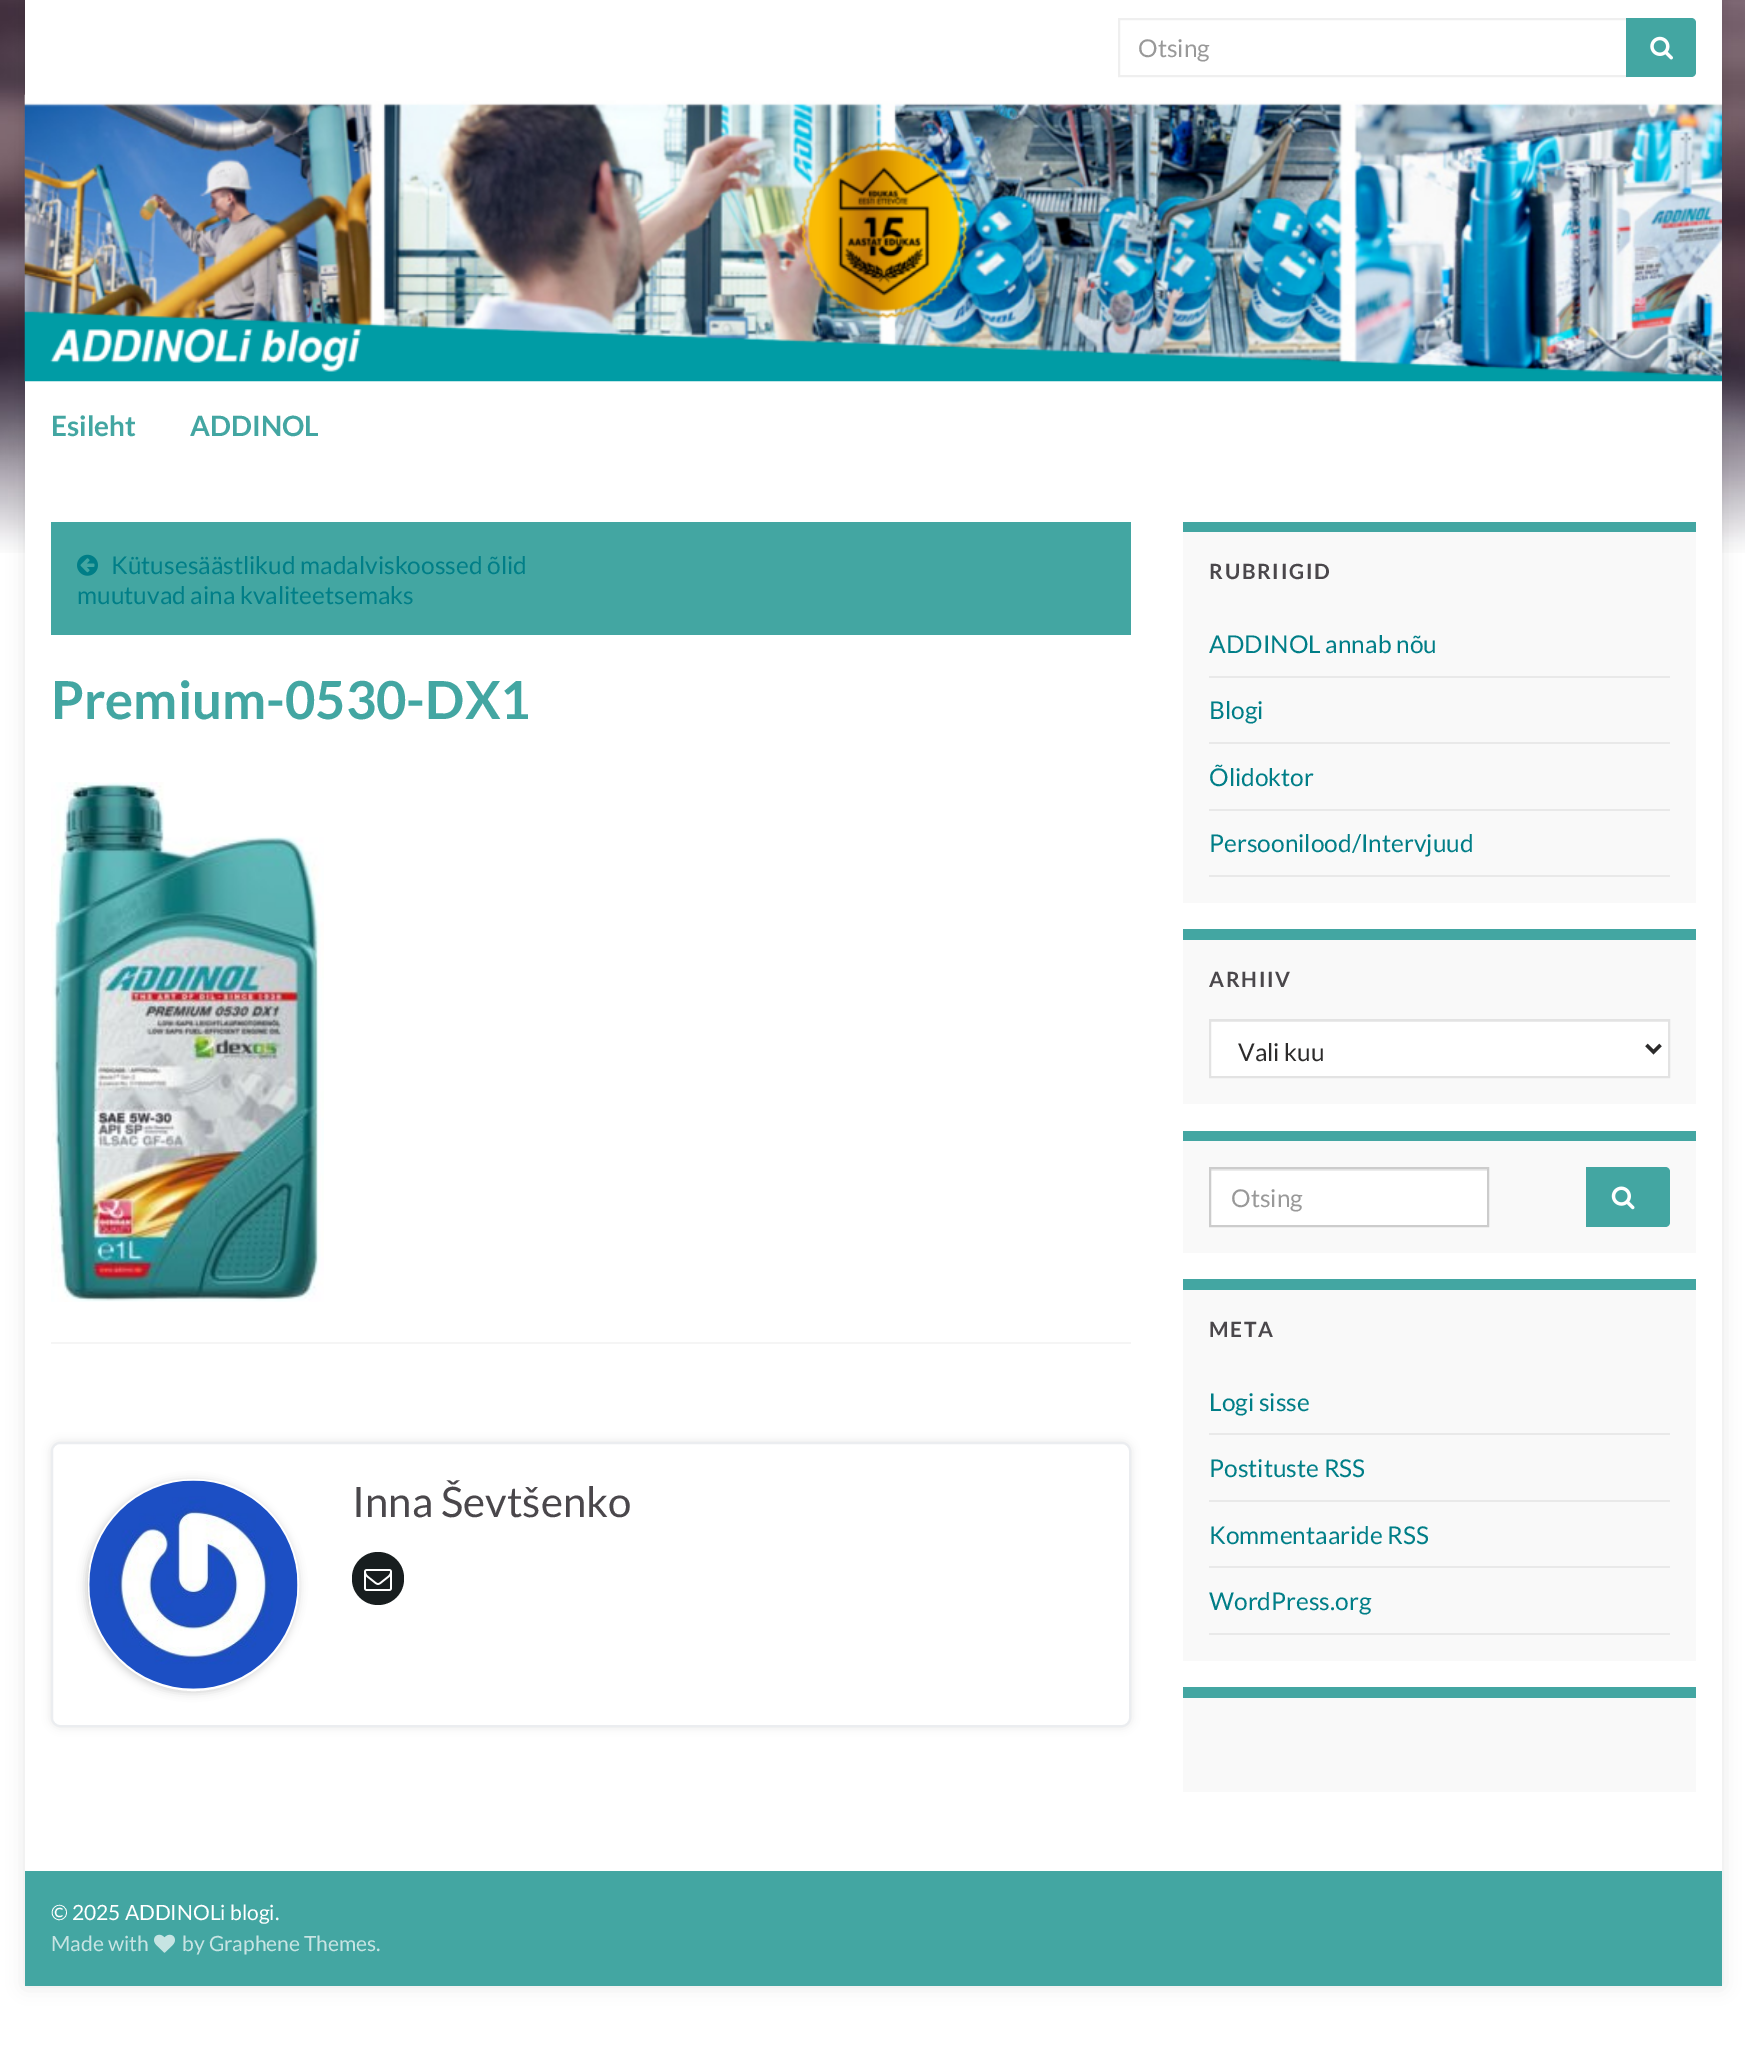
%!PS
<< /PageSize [1745 2053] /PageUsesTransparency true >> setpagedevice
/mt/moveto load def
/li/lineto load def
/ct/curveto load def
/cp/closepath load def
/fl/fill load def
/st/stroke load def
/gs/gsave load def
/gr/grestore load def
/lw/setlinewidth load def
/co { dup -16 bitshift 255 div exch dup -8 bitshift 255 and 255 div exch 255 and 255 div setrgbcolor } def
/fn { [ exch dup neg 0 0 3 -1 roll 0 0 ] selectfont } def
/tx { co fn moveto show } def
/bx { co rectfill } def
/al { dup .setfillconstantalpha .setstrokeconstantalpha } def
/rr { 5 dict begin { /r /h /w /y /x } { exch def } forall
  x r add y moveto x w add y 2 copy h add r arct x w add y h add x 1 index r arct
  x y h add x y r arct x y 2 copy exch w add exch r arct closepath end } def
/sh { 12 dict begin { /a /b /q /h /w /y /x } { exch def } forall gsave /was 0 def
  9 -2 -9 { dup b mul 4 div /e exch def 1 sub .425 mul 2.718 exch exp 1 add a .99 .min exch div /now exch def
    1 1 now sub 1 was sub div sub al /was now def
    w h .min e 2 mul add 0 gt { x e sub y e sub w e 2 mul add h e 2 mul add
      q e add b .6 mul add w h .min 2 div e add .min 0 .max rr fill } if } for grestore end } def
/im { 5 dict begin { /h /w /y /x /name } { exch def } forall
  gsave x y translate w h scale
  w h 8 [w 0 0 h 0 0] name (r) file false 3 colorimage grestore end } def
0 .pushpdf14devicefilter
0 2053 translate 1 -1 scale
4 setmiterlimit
0 0 1745 2053 16#FFFFFF bx
(media/1.raw) 0 0 1745 553 im
16#000000 co
25 0 1697 1986 0 9 .1 sh
25 0 1697 95 16#FFFFFF bx
16#EFEFEF co
2 lw
1119 19 508 57 rectstroke
16#43A6A2 co
1626 18 mt 1691 18 li 1694 18 1696 20 1696 23 ct 1696 72 li 1696 75 1694 77 1691 77 ct 1626 77 li cp fl
(media/2.raw) 1650 36 23 24 im
25 381 1697 88 16#FFFFFF bx
(media/3.raw) 24 94 1698 288 im
25 469 1697 1402 16#FFFFFF bx
51 522 1080 113 16#43A6A2 bx
(media/4.raw) 77 554 21 22 im
(media/5.raw) 51 782 273 520 im
51 1342 1080 2 16#F5F5F5 bx
16#000000 co
51 1442 1080 285 9 4.5 .1 sh
16#FFFFFF co
52 1443 1078 283 8 rr gs fl gr
16#EBEDF0 co
st
16#000000 co
86 1481 212 211 105.5 4.5 .2 sh
16#FFFFFF co
89 1480 209 210 104.5 rr st
(media/6.raw) 89 1480 209 209 im
16#181E1F co
352 1552 52 53 26 rr fl
(media/7.raw) 364 1569 28 22 im
1183 532 513 371 16#F9F9F9 bx
1183 522 513 10 16#43A6A2 bx
1209 676 461 2 16#E9E9E9 bx
1209 742 461 2 16#E9E9E9 bx
1209 809 461 2 16#E9E9E9 bx
1209 875 461 2 16#E9E9E9 bx
1183 940 513 164 16#F9F9F9 bx
1183 929 513 11 16#43A6A2 bx
1211 1022 457 54 16#FFFFFF bx
1211 1021 457 1 16#ECECEC bx
16#E3E3E3 co
1210 1020 459 57 rectstroke
16#2C2B2B co
3.5 lw
1646.5 1045 mt 1653.5 1052 li 1660.5 1045 li st
1183 1141 513 112 16#F9F9F9 bx
1183 1131 513 10 16#43A6A2 bx
1211 1171 276 54 16#FFFFFF bx
1211 1169 277 2 16#ECECEC bx
16#CCCCCC co
2 lw
1210 1168 278 58 rectstroke
16#43A6A2 co
1586 1167 mt 1665 1167 li 1668 1167 1670 1169 1670 1172 ct 1670 1222 li 1670 1225 1668 1227 1665 1227 ct 1586 1227 li cp fl
(media/8.raw) 1611 1186 24 24 im
1183 1290 513 371 16#F9F9F9 bx
1183 1279 513 11 16#43A6A2 bx
1209 1433 461 2 16#E9E9E9 bx
1209 1500 461 2 16#E9E9E9 bx
1209 1566 461 2 16#E9E9E9 bx
1209 1633 461 2 16#E9E9E9 bx
1183 1698 513 94 16#F9F9F9 bx
1183 1687 513 11 16#43A6A2 bx
25 1871 1697 115 16#43A6A2 bx
(media/9.raw) 154 1934 21 19 im
(Otsing) 1138 57 /Lato-Regular 24.5 16#999999 tx
(Esileht) 51 436 /Lato-Bold 28 16#43A6A2 tx
(ADDINOL) 190 436 /Lato-Bold 28 16#43A6A2 tx
(Kütusesäästlikud madalviskoossed õlid) 111 574 /Lato-Regular 24.5 16#007E87 tx
(muutuvad aina kvaliteetsemaks) 77 604 /Lato-Regular 24.5 16#007E87 tx
(Premium-0530-DX1) 51 719 /Lato-Bold 52.5 16#43A6A2 tx
(Inna Ševtšenko) 352 1517 /Lato-Regular 42 16#4A474B tx
/Lato-Bold 21 fn
1209 579 mt 1.75 0 (RUBRIIGID) ashow
(ADDINOL annab nõu) 1209 653 /Lato-Regular 24.5 16#007E87 tx
(Blogi) 1209 719 /Lato-Regular 24.5 16#007E87 tx
(Õlidoktor) 1209 786 /Lato-Regular 24.5 16#007E87 tx
(Persoonilood/Intervjuud) 1209 852 /Lato-Regular 24.5 16#007E87 tx
/Lato-Bold 21 fn
16#4A474B co
1209 987 mt 1.75 0 (ARHIIV) ashow
(Vali kuu) 1238 1061 /Lato-Regular 24.5 16#2C2B2B tx
(Otsing) 1231 1207 /Lato-Regular 24.5 16#999999 tx
/Lato-Bold 21 fn
16#4A474B co
1209 1337 mt 1.75 0 (META) ashow
(Logi sisse) 1209 1411 /Lato-Regular 24.5 16#007E87 tx
(Postituste RSS) 1209 1477 /Lato-Regular 24.5 16#007E87 tx
(Kommentaaride RSS) 1209 1544 /Lato-Regular 24.5 16#007E87 tx
(WordPress.org) 1209 1610 /Lato-Regular 24.5 16#007E87 tx
(© 2025 ADDINOLi blogi.) 51 1920 /Lato-Regular 21 16#FFFFFF tx
(Made with) 51 1951 /Lato-Regular 21 16#C7E4E3 tx
(by Graphene Themes.) 182 1951 /Lato-Regular 21 16#C7E4E3 tx
.poppdf14devicefilter showpage
